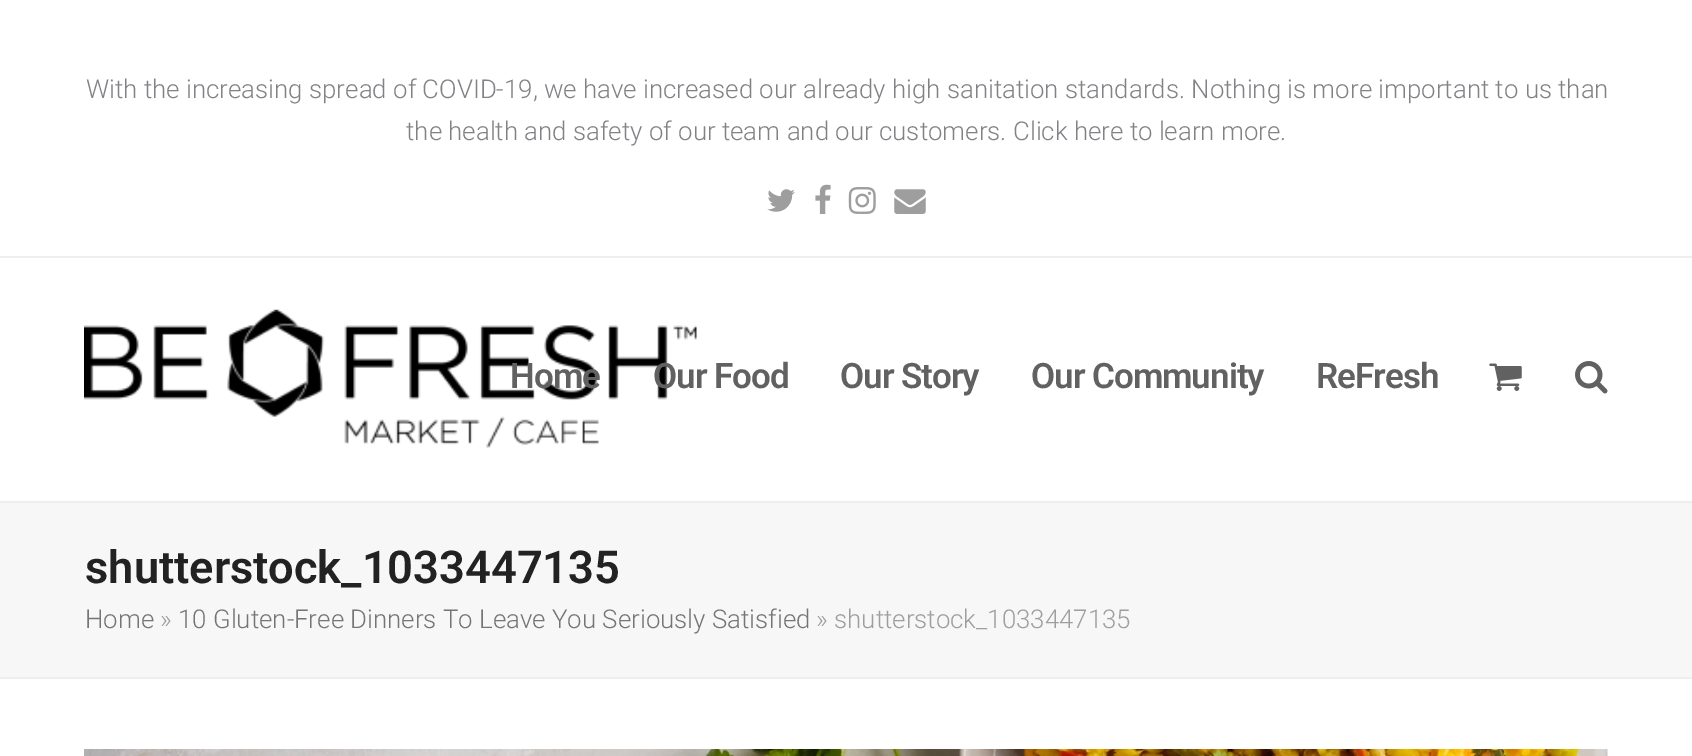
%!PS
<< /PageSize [1692 756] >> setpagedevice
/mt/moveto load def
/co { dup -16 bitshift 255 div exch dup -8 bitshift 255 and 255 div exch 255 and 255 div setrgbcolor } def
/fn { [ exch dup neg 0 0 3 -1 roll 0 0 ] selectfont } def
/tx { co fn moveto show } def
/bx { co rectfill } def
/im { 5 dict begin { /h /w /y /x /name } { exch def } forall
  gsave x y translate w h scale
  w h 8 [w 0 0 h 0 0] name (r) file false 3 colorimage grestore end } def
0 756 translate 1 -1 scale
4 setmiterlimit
0 0 1692 756 16#FFFFFF bx
0 256 1692 2 16#EEEEEE bx
(media/1.raw) 767 189 28 23 im
(media/2.raw) 815 184 16 30 im
(media/3.raw) 848 187 28 27 im
(media/4.raw) 894 189 32 25 im
(media/5.raw) 84 309 613 139 im
(media/6.raw) 1489 363 33 28 im
(media/7.raw) 1575 361 33 33 im
0 503 1692 174 16#F7F7F7 bx
0 501 1692 2 16#EEEEEE bx
0 677 1692 2 16#EEEEEE bx
(media/8.raw) 84 749 1524 7 im
(With the increasing spread of COVID-19, we have increased our already high sanitation standards. Nothing is more important to us than) 86 98 /Roboto-Light 25.85 16#808285 tx
(the health and safety of our team and our customers. Click here to learn more.) 406 140 /Roboto-Light 25.85 16#808285 tx
/Roboto-SemiBold 35 fn
16#616161 co
510 388 mt -1 0 (Home) ashow
653 388 mt -1 0 (Our Food) ashow
840 388 mt -1 0 (Our Story) ashow
1031 388 mt -1 0 (Our Community) ashow
1316 388 mt -1 0 (ReFresh) ashow
(shutterstock_1033447135) 85 583 /Roboto-SemiBold 45.25 16#222222 tx
(Home) 85 628 /Roboto-Light 25.85 16#757575 tx
(») 160 628 /Roboto-Light 25.85 16#9E9E9E tx
(10 Gluten-Free Dinners To Leave You Seriously Satisfied) 178 628 /Roboto-Light 25.85 16#757575 tx
(» shutterstock_1033447135) 816 628 /Roboto-Light 25.85 16#9E9E9E tx
showpage
